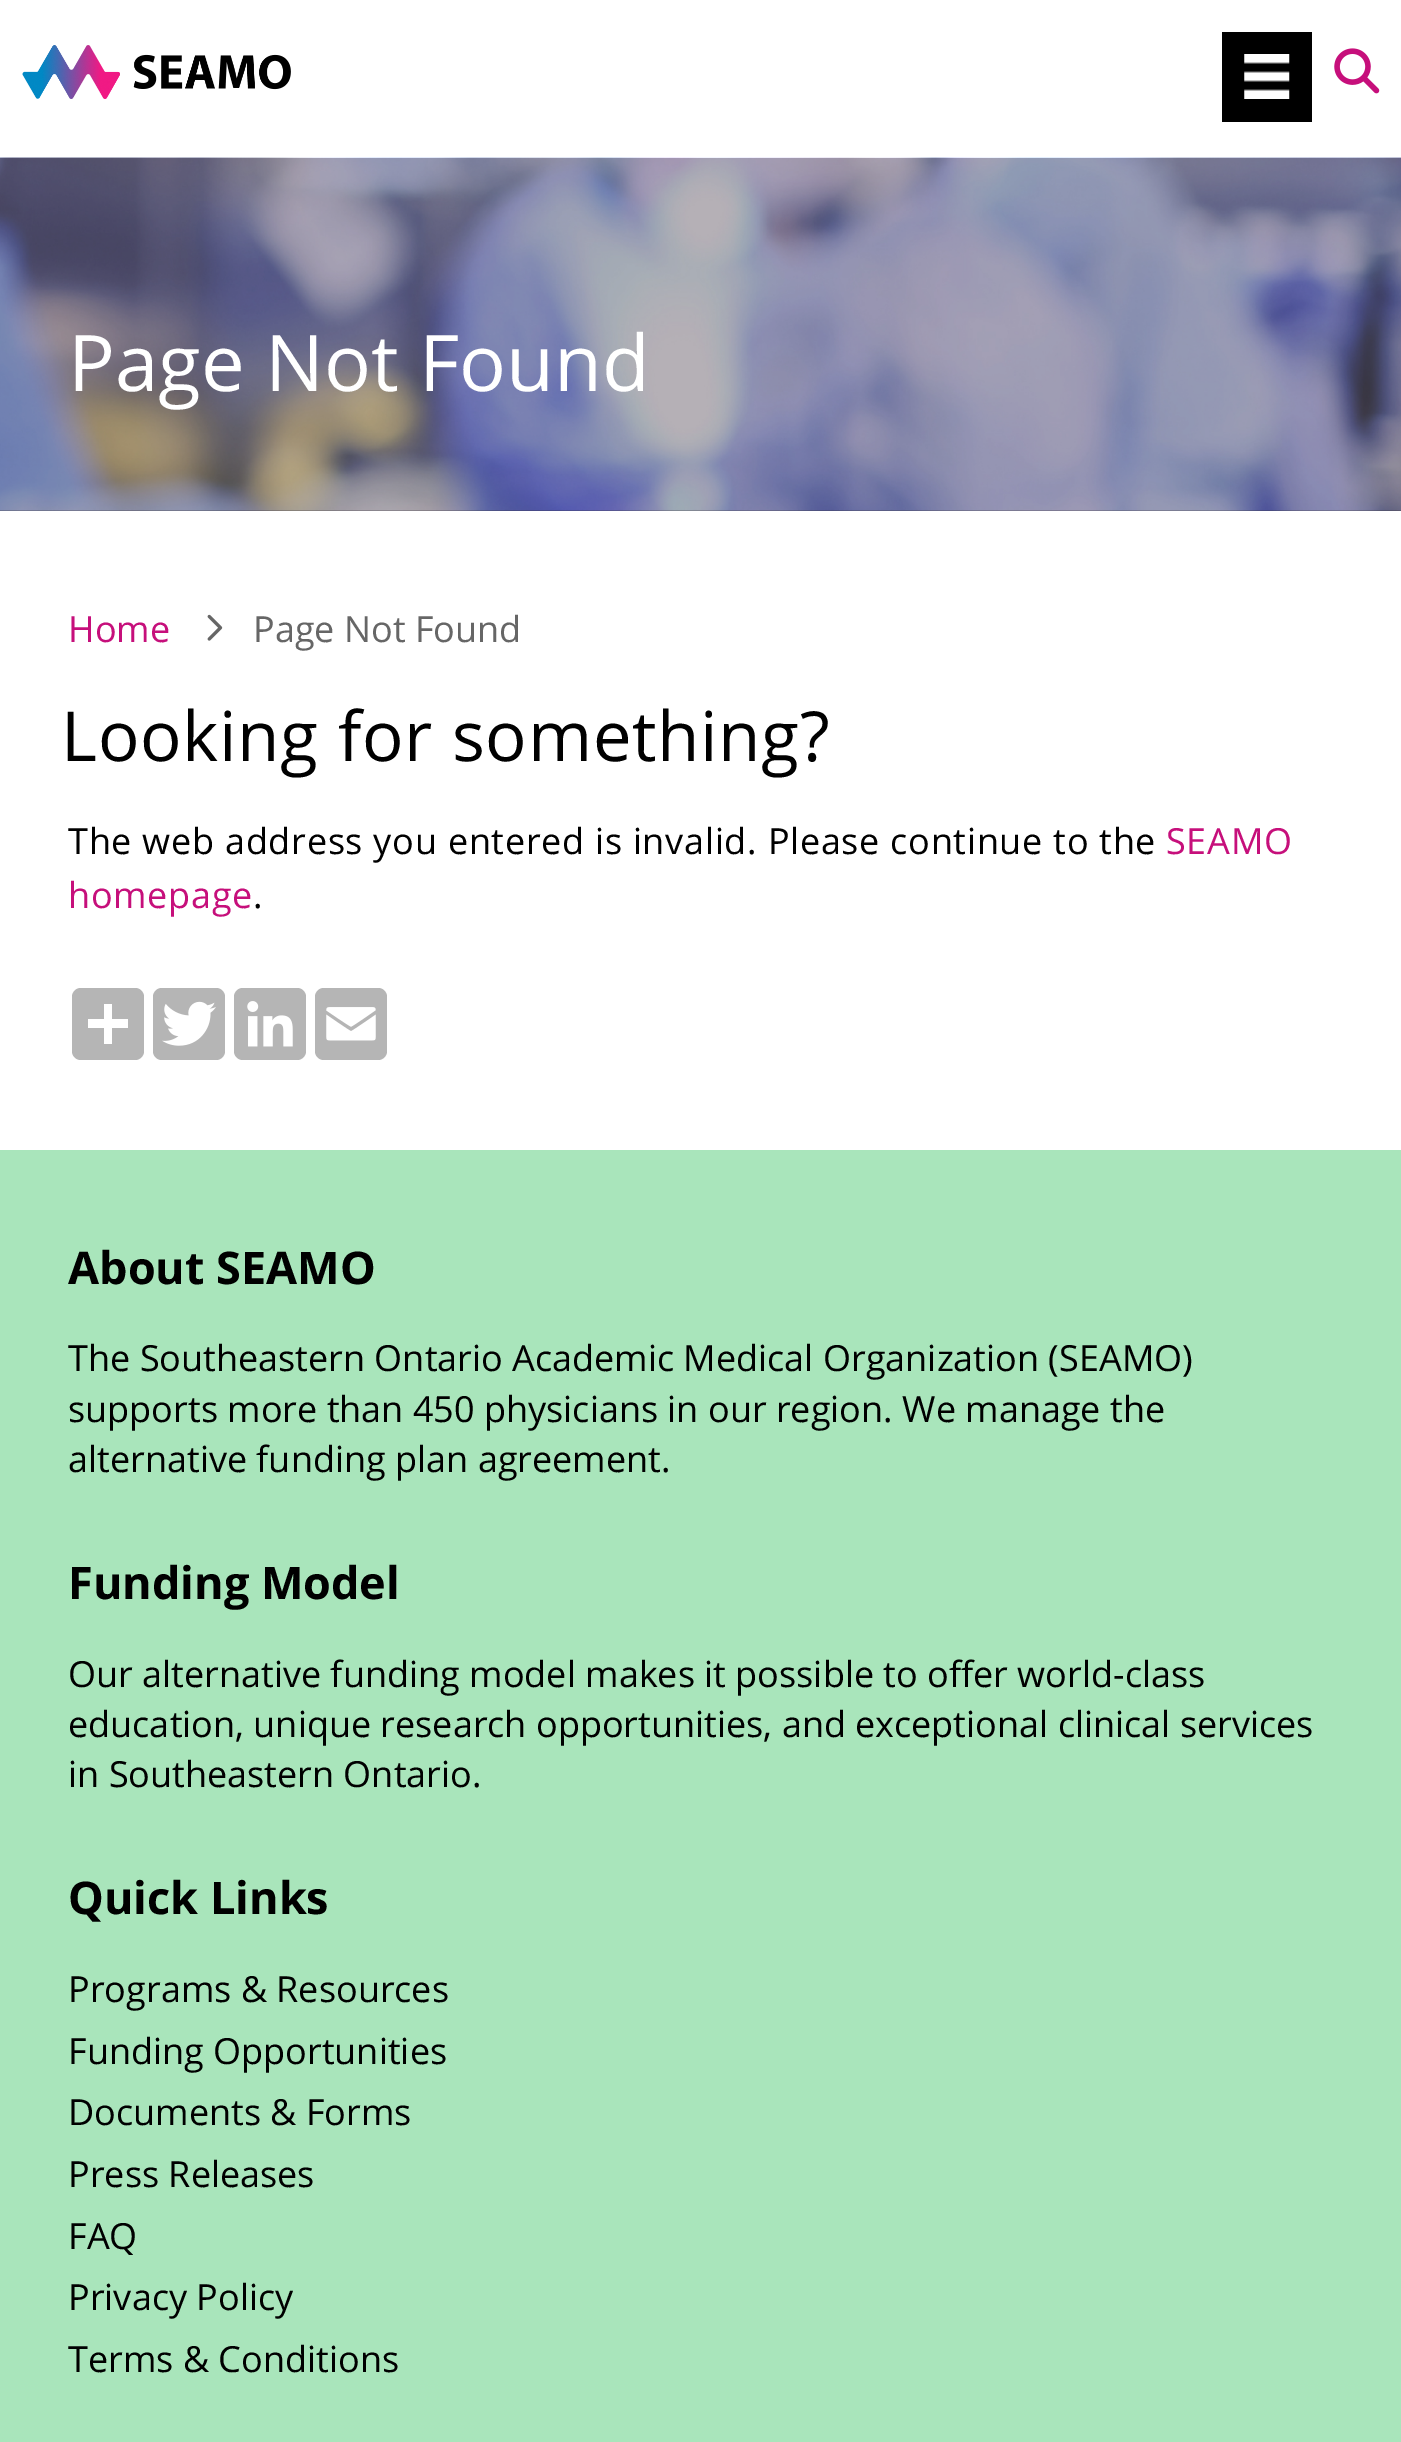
%!PS
<< /PageSize [1401 2442] >> setpagedevice
/mt/moveto load def
/fl/fill load def
/co { dup -16 bitshift 255 div exch dup -8 bitshift 255 and 255 div exch 255 and 255 div setrgbcolor } def
/fn { [ exch dup neg 0 0 3 -1 roll 0 0 ] selectfont } def
/tx { co fn moveto show } def
/bx { co rectfill } def
/rr { 5 dict begin { /r /h /w /y /x } { exch def } forall
  x r add y moveto x w add y 2 copy h add r arct x w add y h add x 1 index r arct
  x y h add x y r arct x y 2 copy exch w add exch r arct closepath end } def
/im { 5 dict begin { /h /w /y /x /name } { exch def } forall
  gsave x y translate w h scale
  w h 8 [w 0 0 h 0 0] name (r) file false 3 colorimage grestore end } def
0 2442 translate 1 -1 scale
4 setmiterlimit
0 0 1401 2442 16#FFFFFF bx
1222 32 90 90 16#000000 bx
(media/1.raw) 1244 54 46 45 im
(media/2.raw) 22 45 269 54 im
(media/3.raw) 1334 48 46 46 im
(media/4.raw) 0 157 1401 354 im
(media/5.raw) 207 614 16 27 im
16#B5B5B5 co
72 988 72 72 9 rr fl
104 1004 8 40 16#FFFFFF bx
88 1019 40 9 16#FFFFFF bx
16#B5B5B5 co
153 988 72 72 9 rr fl
(media/6.raw) 162 1001 54 45 im
234 988 72 72 9 rr fl
(media/7.raw) 247 1001 46 46 im
315 988 72 72 9 rr fl
(media/8.raw) 326 1007 50 34 im
0 1150 1401 1292 16#A9E5BB bx
(Page Not Found) 68 391 /OpenSans-Regular 78 16#FFFFFF tx
(Home) 68 642 /OpenSans-Regular 36 16#C60F7B tx
(Page Not Found) 253 642 /OpenSans-Regular 36 16#666666 tx
/OpenSans-Regular 69 fn
16#000000 co
61 761 mt .72 0 (Looking for something?) ashow
/OpenSans-Regular 36 fn
68 854 mt .72 0 (The web address you entered is invalid. Please continue to the) ashow
16#C60F7B co
1166 854 mt .72 0 (SEAMO) ashow
68 908 mt .72 0 (homepage) ashow
16#000000 co
253 908 mt .72 0 (.) ashow
(About SEAMO) 68 1284 /OpenSans-Bold 45 16#000000 tx
(The Southeastern Ontario Academic Medical Organization \(SEAMO\)) 68 1371 /OpenSans-Regular 36 16#000000 tx
(supports more than 450 physicians in our region. We manage the) 68 1422 /OpenSans-Regular 36 16#000000 tx
(alternative funding plan agreement.) 68 1472 /OpenSans-Regular 36 16#000000 tx
(Funding Model) 68 1599 /OpenSans-Bold 45 16#000000 tx
(Our alternative funding model makes it possible to offer world-class) 68 1687 /OpenSans-Regular 36 16#000000 tx
(education, unique research opportunities, and exceptional clinical services) 68 1737 /OpenSans-Regular 36 16#000000 tx
(in Southeastern Ontario.) 68 1787 /OpenSans-Regular 36 16#000000 tx
(Quick Links) 68 1914 /OpenSans-Bold 45 16#000000 tx
(Programs & Resources) 68 2002 /OpenSans-Regular 36 16#000000 tx
(Funding Opportunities) 68 2064 /OpenSans-Regular 36 16#000000 tx
(Documents & Forms) 68 2125 /OpenSans-Regular 36 16#000000 tx
(Press Releases) 68 2187 /OpenSans-Regular 36 16#000000 tx
(FAQ) 68 2249 /OpenSans-Regular 36 16#000000 tx
(Privacy Policy) 68 2310 /OpenSans-Regular 36 16#000000 tx
(Terms & Conditions) 68 2372 /OpenSans-Regular 36 16#000000 tx
showpage
